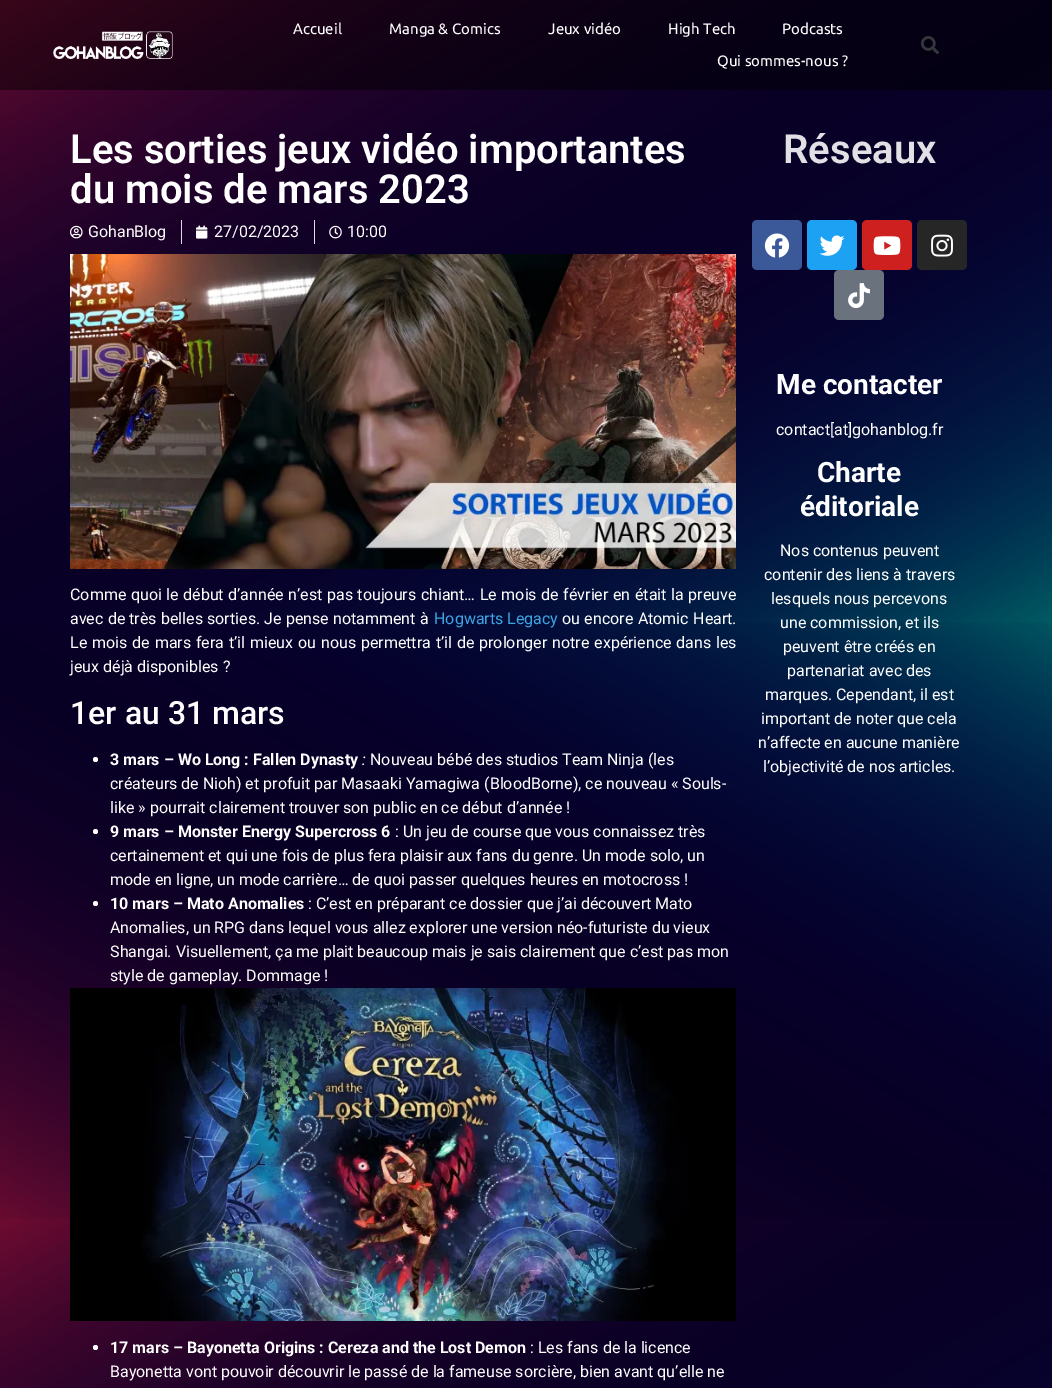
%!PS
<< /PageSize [1052 1388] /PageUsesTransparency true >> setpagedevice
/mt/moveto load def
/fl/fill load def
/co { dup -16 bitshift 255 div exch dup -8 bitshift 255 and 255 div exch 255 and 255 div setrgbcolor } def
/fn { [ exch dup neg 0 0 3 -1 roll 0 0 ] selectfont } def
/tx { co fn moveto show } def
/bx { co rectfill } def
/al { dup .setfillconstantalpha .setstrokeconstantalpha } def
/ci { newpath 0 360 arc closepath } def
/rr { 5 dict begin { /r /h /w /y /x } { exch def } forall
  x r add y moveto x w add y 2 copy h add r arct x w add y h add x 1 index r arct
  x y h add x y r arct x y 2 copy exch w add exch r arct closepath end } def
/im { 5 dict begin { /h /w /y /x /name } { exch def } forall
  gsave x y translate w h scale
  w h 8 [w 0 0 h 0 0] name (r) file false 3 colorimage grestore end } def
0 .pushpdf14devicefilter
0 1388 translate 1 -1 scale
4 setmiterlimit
0 0 1052 1388 16#FFFFFF bx
(media/3.raw) 0 0 1052 1388 im
0.48 al
0 0 1052 90 16#000000 bx
1 al
(media/1.raw) 53 31 120 28 im
(media/2.raw) 921 36 18 19 im
(media/4.raw) 70 225 13 14 im
181 220 1 24 16#DDDDDD bx
(media/5.raw) 196 225 12 14 im
314 220 1 24 16#DDDDDD bx
(media/6.raw) 329 225 13 14 im
(media/7.raw) 70 254 666 315 im
16#FFFFFF co
95.5 759.5 2.5 ci fl
95.5 831.5 2.5 ci fl
95.5 903.5 2.5 ci fl
(media/8.raw) 70 988 666 333 im
95.5 1347.5 2.5 ci fl
16#3B5998 co
752 220 50 50 5 rr fl
(media/9.raw) 764 233 26 25 im
16#1DA1F2 co
807 220 50 50 5 rr fl
(media/10.raw) 819 235 26 21 im
16#CD201F co
862 220 50 50 5 rr fl
(media/11.raw) 873 236 28 19 im
16#262626 co
917 220 50 50 5 rr fl
(media/12.raw) 931 234 22 23 im
16#69727D co
834 270 50 50 5 rr fl
(media/13.raw) 848 283 22 26 im
(Accueil) 293 34 /Ubuntu-Regular 15 16#FFFFFF tx
(Manga & Comics) 389 34 /Ubuntu-Regular 15 16#FFFFFF tx
(Jeux vidéo) 548 34 /Ubuntu-Regular 15 16#FFFFFF tx
(High Tech) 668 34 /Ubuntu-Regular 15 16#FFFFFF tx
(Podcasts) 782 34 /Ubuntu-Regular 15 16#FFFFFF tx
(Qui sommes-nous ?) 717 66 /Ubuntu-Regular 15 16#FFFFFF tx
(Les sorties jeux vidéo importantes) 70 163 /Roboto-SemiBold 40 16#FFFFFF tx
(du mois de mars 2023) 70 203 /Roboto-SemiBold 40 16#FFFFFF tx
(GohanBlog) 88 237 /Roboto-Regular 16 16#FFFFFF tx
(27/02/2023) 214 237 /Roboto-Regular 16 16#FFFFFF tx
(10:00) 347 237 /Roboto-Regular 16 16#FFFFFF tx
70 600 mt .6 0 32 (Comme quoi le début d’année n’est pas toujours chiant… Le mois de février en était la preuve) widthshow
70 624 mt .25 0 32 (avec de très belles sorties. Je pense notamment à) widthshow
(Hogwarts Legacy) 434 624 /Roboto-Regular 16 16#3EA3E2 tx
16#FFFFFF co
562 624 mt .5 0 32 (ou encore Atomic Heart.) widthshow
70 648 mt .9 0 32 (Le mois de mars fera t’il mieux ou nous permettra t’il de prolonger notre expérience dans les) widthshow
(jeux déjà disponibles ?) 70 672 /Roboto-Regular 16 16#FFFFFF tx
(1er au 31 mars) 70 724 /Roboto-Medium 32 16#FFFFFF tx
(3 mars – Wo Long : Fallen Dynasty) 110 765 /Roboto-Bold 16 16#FFFFFF tx
(:) 362 765 /Roboto-Italic 16 16#FFFFFF tx
(Nouveau bébé des studios Team Ninja \(les) 370 765 /Roboto-Regular 16 16#FFFFFF tx
(créateurs de Nioh\) et profuit par Masaaki Yamagiwa \(BloodBorne\), ce nouveau « Souls-) 110 789 /Roboto-Regular 16 16#FFFFFF tx
(like » pourrait clairement trouver son public en ce début d’année !) 110 813 /Roboto-Regular 16 16#FFFFFF tx
(9 mars – Monster Energy Supercross 6) 110 837 /Roboto-Bold 16 16#FFFFFF tx
(: Un jeu de course que vous connaissez très) 395 837 /Roboto-Regular 16 16#FFFFFF tx
(certainement et qui une fois de plus fera plaisir aux fans du genre. Un mode solo, un) 110 861 /Roboto-Regular 16 16#FFFFFF tx
(mode en ligne, un mode carrière… de quoi passer quelques heures en motocross !) 110 885 /Roboto-Regular 16 16#FFFFFF tx
(10 mars – Mato Anomalies) 110 909 /Roboto-Bold 16 16#FFFFFF tx
(: C’est en préparant ce dossier que j’ai découvert Mato) 308 909 /Roboto-Regular 16 16#FFFFFF tx
(Anomalies, un RPG dans lequel vous allez explorer une version néo-futuriste du vieux) 110 933 /Roboto-Regular 16 16#FFFFFF tx
(Shangai. Visuellement, ça me plait beaucoup mais je sais clairement que c’est pas mon) 110 957 /Roboto-Regular 16 16#FFFFFF tx
(style de gameplay. Dommage !) 110 981 /Roboto-Regular 16 16#FFFFFF tx
(17 mars – Bayonetta Origins : Cereza and the Lost Demon) 110 1353 /Roboto-Bold 16 16#FFFFFF tx
(: Les fans de la licence) 530 1353 /Roboto-Regular 16 16#FFFFFF tx
(Bayonetta vont pouvoir découvrir le passé de la fameuse sorcière, bien avant qu’elle ne) 110 1377 /Roboto-Regular 16 16#FFFFFF tx
(Réseaux) 783 163 /Roboto-SemiBold 40 16#E1E0E5 tx
(Me contacter) 776 394 /Roboto-Bold 28 16#FFFFFF tx
(contact[at]gohanblog.fr) 776 435 /Roboto-Regular 16 16#FFFFFF tx
(Charte) 817 482 /Roboto-Bold 28 16#FFFFFF tx
(éditoriale) 800 516 /Roboto-Bold 28 16#FFFFFF tx
(Nos contenus peuvent) 780 556 /Roboto-Regular 16 16#FFFFFF tx
(contenir des liens à travers) 764 580 /Roboto-Regular 16 16#FFFFFF tx
(lesquels nous percevons) 771 604 /Roboto-Regular 16 16#FFFFFF tx
(une commission, et ils) 780 628 /Roboto-Regular 16 16#FFFFFF tx
(peuvent être créés en) 783 652 /Roboto-Regular 16 16#FFFFFF tx
(partenariat avec des) 787 676 /Roboto-Regular 16 16#FFFFFF tx
(marques. Cependant, il est) 765 700 /Roboto-Regular 16 16#FFFFFF tx
(important de noter que cela) 761 724 /Roboto-Regular 16 16#FFFFFF tx
(n’affecte en aucune manière) 758 748 /Roboto-Regular 16 16#FFFFFF tx
(l’objectivité de nos articles.) 763 772 /Roboto-Regular 16 16#FFFFFF tx
.poppdf14devicefilter showpage
